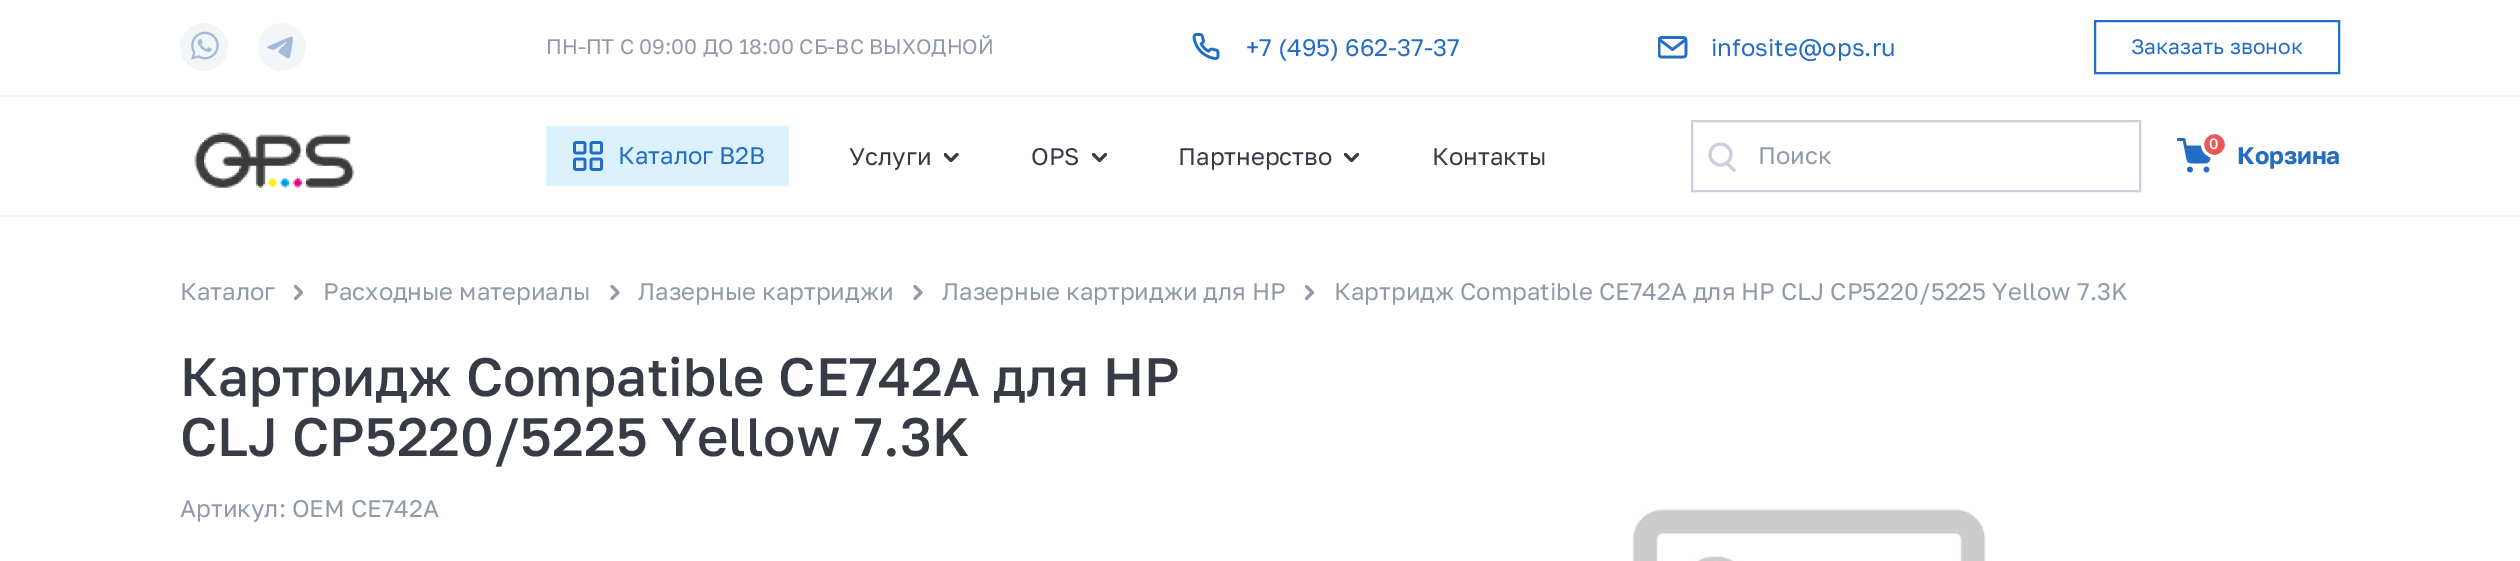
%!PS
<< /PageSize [2520 561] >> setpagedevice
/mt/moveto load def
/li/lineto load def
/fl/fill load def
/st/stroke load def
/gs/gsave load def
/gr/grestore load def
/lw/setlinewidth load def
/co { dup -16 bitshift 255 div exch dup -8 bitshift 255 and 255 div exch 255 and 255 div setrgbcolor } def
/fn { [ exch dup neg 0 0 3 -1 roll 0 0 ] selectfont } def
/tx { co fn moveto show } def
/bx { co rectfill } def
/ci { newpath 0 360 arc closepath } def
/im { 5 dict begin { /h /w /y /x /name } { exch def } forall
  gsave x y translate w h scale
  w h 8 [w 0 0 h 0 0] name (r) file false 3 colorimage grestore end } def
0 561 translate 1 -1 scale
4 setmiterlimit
0 0 2520 561 16#FFFFFF bx
0 95 2520 2 16#F5F5F5 bx
(media/1.raw) 180 23 48 48 im
(media/2.raw) 258 23 48 48 im
(media/3.raw) 1192 33 28 27 im
(media/4.raw) 1658 36 30 23 im
16#246DC3 co
2 lw
2095 21 244 52 rectstroke
0 215 2520 2 16#F5F5F5 bx
(media/5.raw) 194 132 161 56 im
546 126 243 60 16#DBF1FE bx
(media/6.raw) 573 141 30 30 im
gs
944 153 15 9 rectclip
16#373B46 co
3 lw
1 setlinecap
1 setlinejoin
945 154.5 mt 951 160.5 li 957 154.5 li st
gr
16#373B46 co
3 lw
1 setlinecap
1 setlinejoin
1093.5 154.5 mt 1099.5 160.5 li 1105.5 154.5 li st
1345.5 154.5 mt 1351.5 160.5 li 1357.5 154.5 li st
16#C8D0DD co
0 setlinecap
0 setlinejoin
1720.5 154.5 10.5 ci st
1727 163.5 mt 1735 171 li st
2 lw
1692 121 448 70 rectstroke
(media/7.raw) 2177 138 34 35 im
16#EB5757 co
2214.5 144.5 12 ci gs fl gr
16#FFFFFF co
3 lw
st
16#919BAA co
1 setlinecap
1 setlinejoin
295.5 298.5 mt 301.5 292.5 li 295.5 286.5 li st
612 298.5 mt 618 292.5 li 612 286.5 li st
915 298.5 mt 921 292.5 li 915 286.5 li st
1306.5 298.5 mt 1312.5 292.5 li 1306.5 286.5 li st
(media/8.raw) 1632 509 354 52 im
(ПН-ПТ С 09:00 ДО 18:00 СБ-ВС ВЫХОДНОЙ) 546 54 /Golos-Regular 21 16#909BAA tx
(+7 \(495\) 662-37-37) 1246 56 /Golos-Regular 24 16#246DC3 tx
(infosite@ops.ru) 1711 56 /Golos-Regular 24 16#246DC3 tx
(Заказать звонок) 2131 54 /Golos-Regular 21 16#246DC3 tx
(Каталог B2B) 618 164 /Golos-Regular 24 16#246DC3 tx
(Услуги) 849 165 /Golos-Regular 24 16#373B46 tx
(OPS) 1031 165 /Golos-Regular 24 16#373B46 tx
(Партнерство) 1178 165 /Golos-Regular 24 16#373B46 tx
(Контакты) 1432 165 /Golos-Regular 24 16#373B46 tx
(Поиск) 1758 164 /Golos-Regular 24 16#909BAA tx
(0) 2209 149 /Golos-Medium 15 16#FFFFFF tx
(Корзина) 2237 164 /Golos-Bold 24 16#246DC3 tx
(Каталог) 180 300 /Golos-Regular 24 16#909BAA tx
(Расходные материалы) 323 300 /Golos-Regular 24 16#909BAA tx
(Лазерные картриджи) 638 300 /Golos-Regular 24 16#909BAA tx
(Лазерные картриджи для HP) 942 300 /Golos-Regular 24 16#909BAA tx
(Картридж Compatible CE742A для HP CLJ CP5220/5225 Yellow 7.3K) 1334 300 /Golos-Regular 24 16#909BAA tx
(Картридж Compatible CE742A для HP) 180 396 /Golos-Medium 54 16#373B46 tx
(CLJ CP5220/5225 Yellow 7.3K) 180 456 /Golos-Medium 54 16#373B46 tx
(Артикул: OEM CE742A) 180 517 /Golos-Regular 24 16#909BAA tx
showpage
